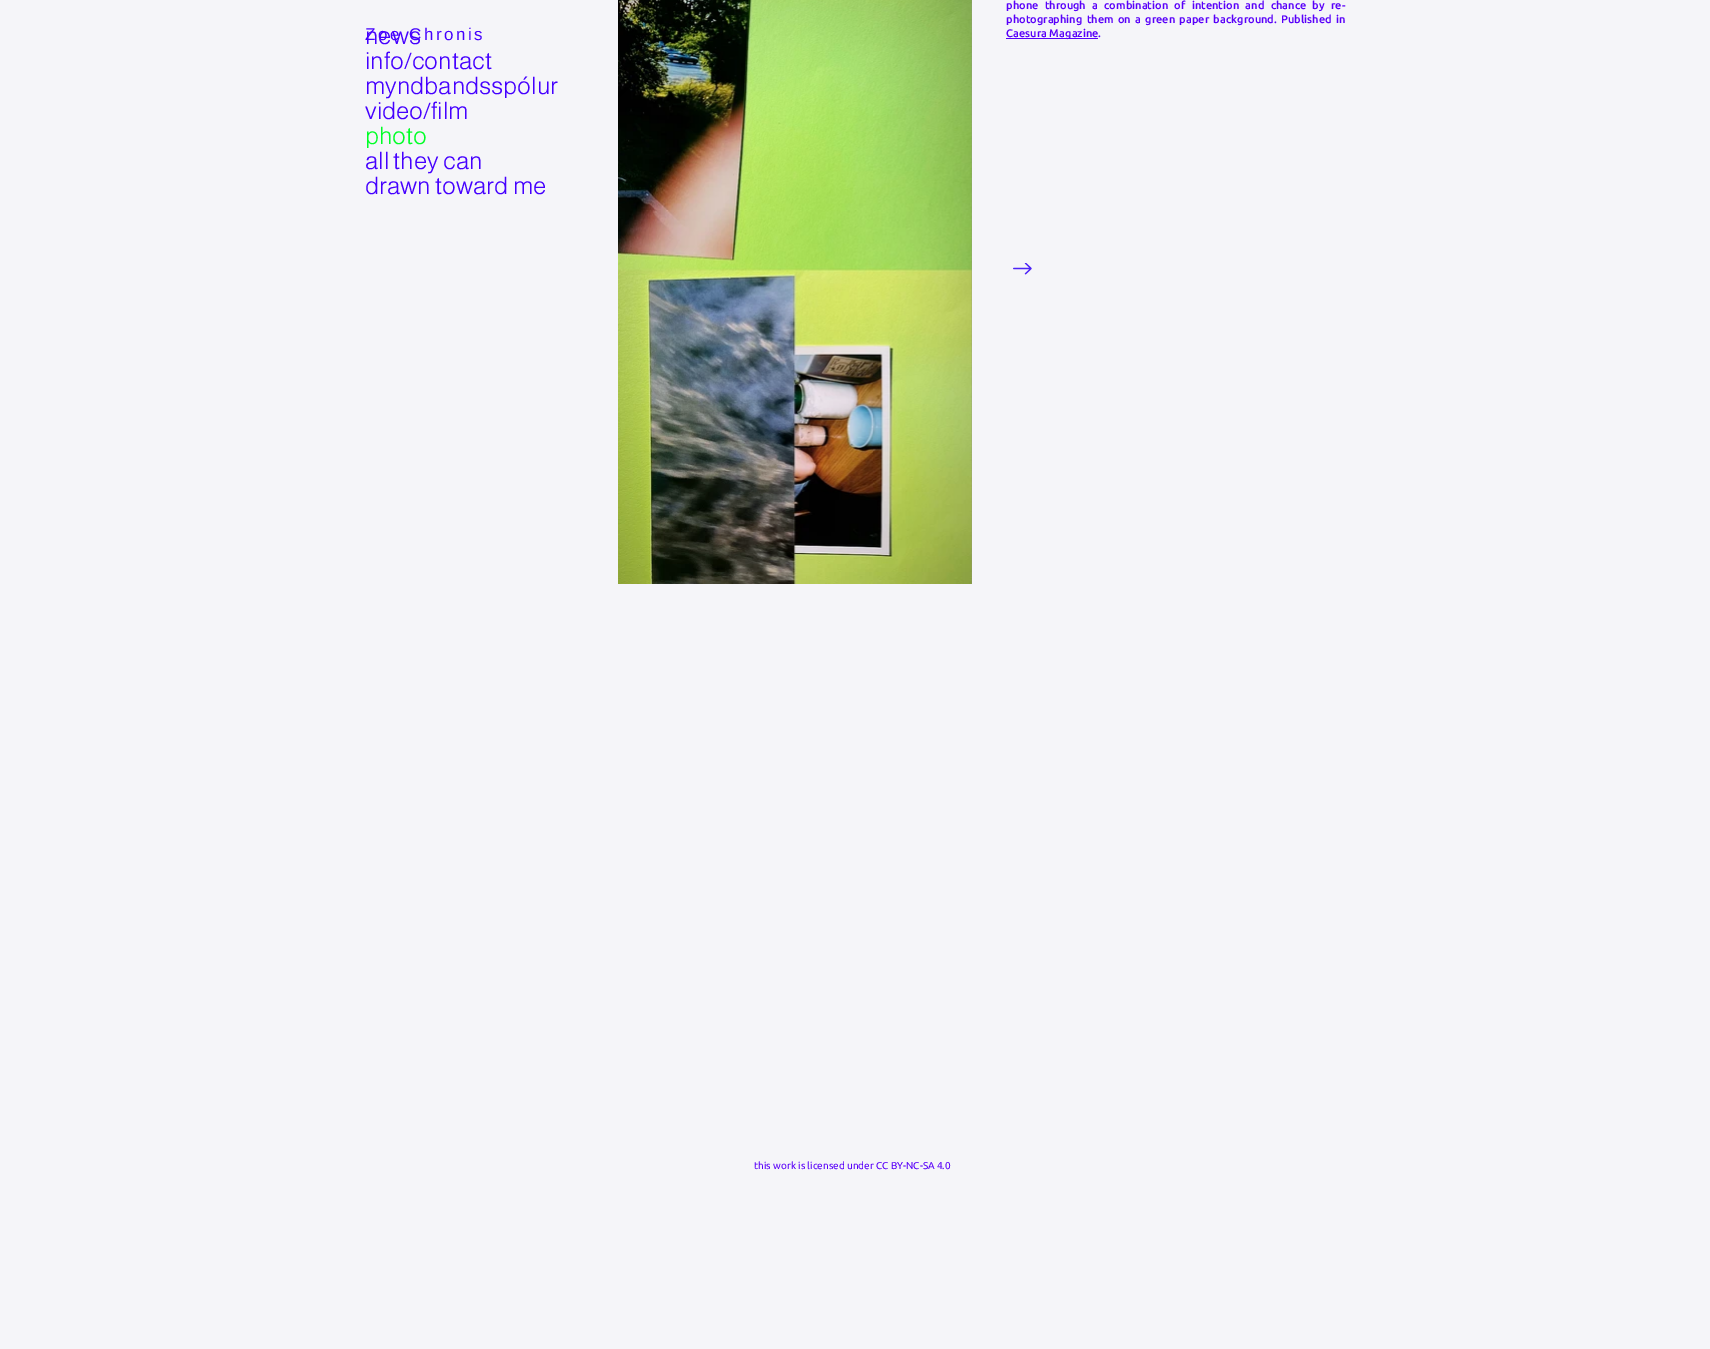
%!PS
<< /PageSize [1710 1349] >> setpagedevice
/mt/moveto load def
/co { dup -16 bitshift 255 div exch dup -8 bitshift 255 and 255 div exch 255 and 255 div setrgbcolor } def
/fn { [ exch dup neg 0 0 3 -1 roll 0 0 ] selectfont } def
/tx { co fn moveto show } def
/bx { co rectfill } def
/im { 5 dict begin { /h /w /y /x /name } { exch def } forall
  gsave x y translate w h scale
  w h 8 [w 0 0 h 0 0] name (r) file false 3 colorimage grestore end } def
0 1349 translate 1 -1 scale
4 setmiterlimit
0 0 1710 1349 16#F5F5F9 bx
(media/1.raw) 618 0 354 584 im
(media/2.raw) 1013 263 19 12 im
1006 38 92 1 16#5900FA bx
/Ubuntu-Medium 11 fn
1006 9 mt 3.75 0 32 (phone through a combination of intention and chance by re-) widthshow
1006 23 mt 1.75 0 32 (photographing them on a green paper background. Published in) widthshow
(Caesura Magazine.) 1006 37 /Ubuntu-Medium 11 16#5900FA tx
(news) 365 44 /Almarai-Light 24 16#4500FF tx
/LiberationSans-Regular 17 fn
365 40 mt 2.5 0 (Zoe Chronis) ashow
(info/contact) 365 69 /Almarai-Light 24 16#4500FF tx
(myndbandsspólur) 365 94 /Almarai-Light 24 16#4500FF tx
(video/film) 365 119 /Almarai-Light 24 16#4500FF tx
(photo) 365 144 /Almarai-Light 24 16#00FF27 tx
(all they can) 365 169 /Almarai-Light 24 16#4500FF tx
(drawn toward me) 365 194 /Almarai-Light 24 16#4500FF tx
(this work is licensed under CC BY-NC-SA 4.0) 754 1169 /Ubuntu-Regular 10 16#5900FA tx
showpage
